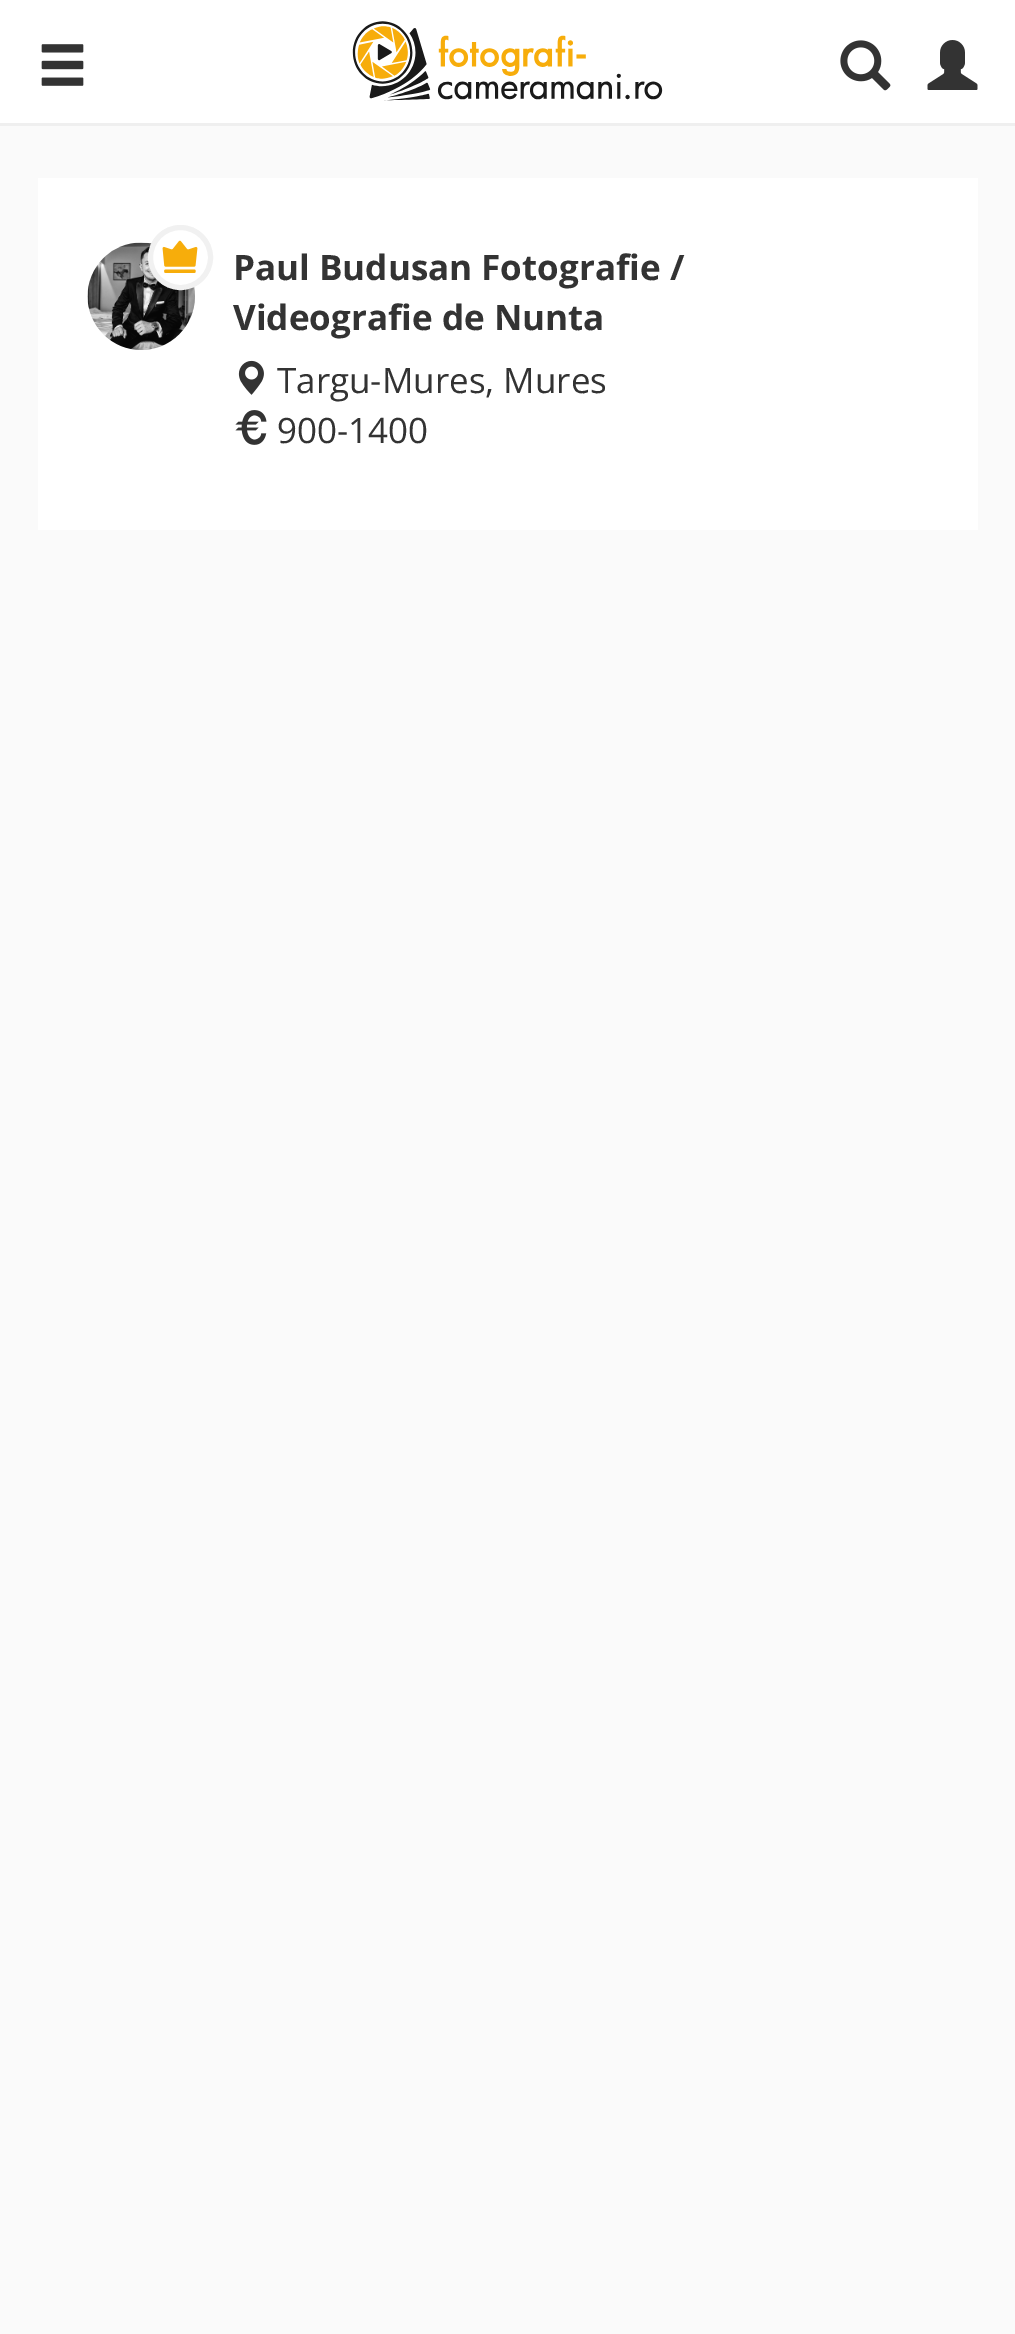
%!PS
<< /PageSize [1015 2334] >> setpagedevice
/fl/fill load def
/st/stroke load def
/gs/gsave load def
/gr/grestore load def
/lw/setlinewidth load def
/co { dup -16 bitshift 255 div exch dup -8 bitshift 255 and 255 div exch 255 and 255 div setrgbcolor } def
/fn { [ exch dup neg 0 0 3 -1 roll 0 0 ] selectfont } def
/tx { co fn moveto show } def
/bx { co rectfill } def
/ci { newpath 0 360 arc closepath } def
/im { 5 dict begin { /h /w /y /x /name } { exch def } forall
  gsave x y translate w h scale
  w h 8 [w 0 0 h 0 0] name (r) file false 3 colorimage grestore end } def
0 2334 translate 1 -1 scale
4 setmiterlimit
0 0 1015 2334 16#FAFAFA bx
0 0 1015 123 16#FFFFFF bx
0 123 1015 3 16#EFEFEF bx
(media/1.raw) 41 44 43 42 im
(media/2.raw) 352 21 311 80 im
(media/3.raw) 840 40 51 51 im
(media/4.raw) 927 40 51 50 im
38 178 940 352 16#FFFFFF bx
16#DDDDDD co
141.5 296.5 53.5 ci fl
(media/6.raw) 87 242 108 108 im
16#FFFFFF co
180.5 257.5 30 ci gs fl gr
16#F1F1F1 co
5 lw
st
(media/5.raw) 162 240 36 33 im
(media/7.raw) 238 360 26 35 im
(media/8.raw) 235 410 32 35 im
(Paul Budusan Fotografie /) 233 280 /OpenSans-Bold 35 16#333333 tx
(Videografie de Nunta) 233 330 /OpenSans-Bold 35 16#333333 tx
(Targu-Mures, Mures) 277 393 /OpenSans-Regular 35 16#333333 tx
(900-1400) 277 443 /OpenSans-Regular 35 16#333333 tx
showpage
